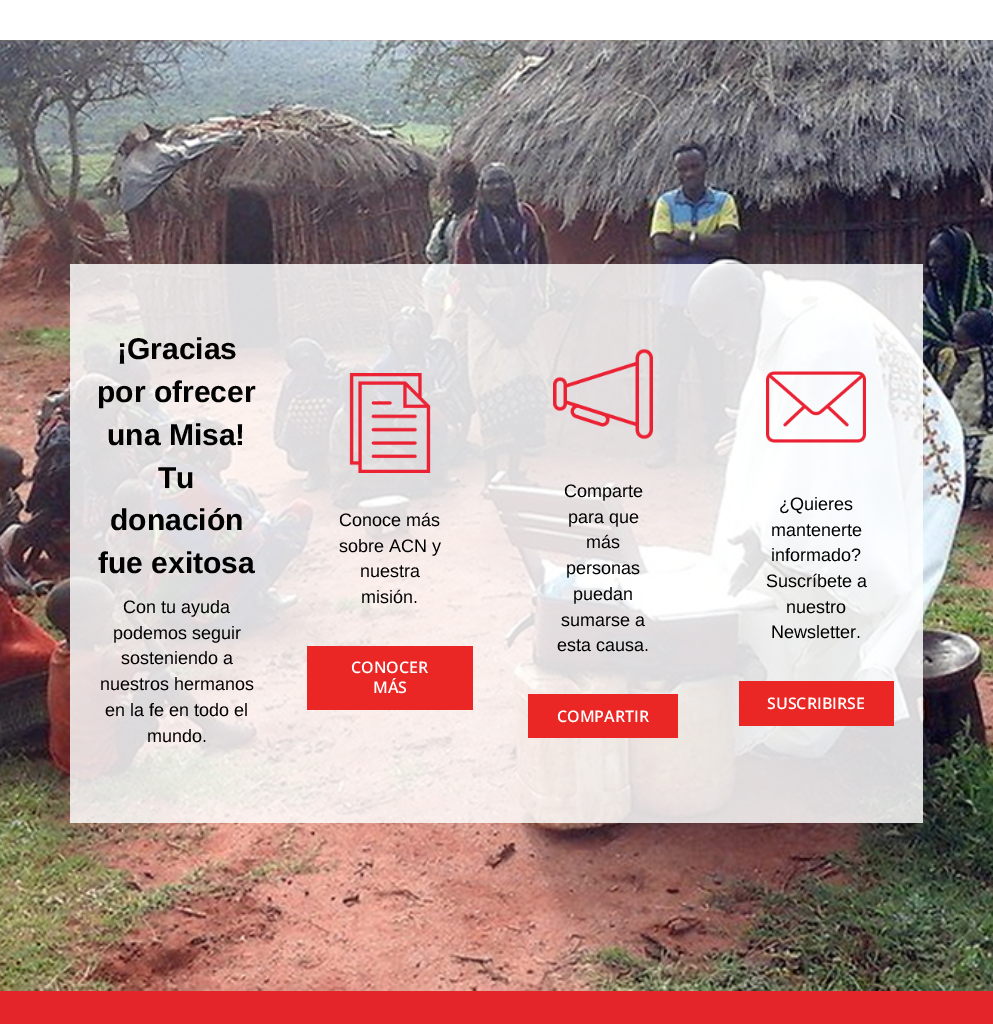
%!PS
<< /PageSize [993 1024] /PageUsesTransparency true >> setpagedevice
/co { dup -16 bitshift 255 div exch dup -8 bitshift 255 and 255 div exch 255 and 255 div setrgbcolor } def
/fn { [ exch dup neg 0 0 3 -1 roll 0 0 ] selectfont } def
/tx { co fn moveto show } def
/bx { co rectfill } def
/al { dup .setfillconstantalpha .setstrokeconstantalpha } def
/im { 5 dict begin { /h /w /y /x /name } { exch def } forall
  gsave x y translate w h scale
  w h 8 [w 0 0 h 0 0] name (r) file false 3 colorimage grestore end } def
0 .pushpdf14devicefilter
0 1024 translate 1 -1 scale
4 setmiterlimit
0 0 993 1024 16#FFFFFF bx
(media/1.raw) 0 40 993 951 im
0.83 al
70 264 853 559 16#FFFFFF bx
1 al
(media/2.raw) 349 373 82 100 im
307 646 166 64 16#EA2724 bx
(media/3.raw) 553 348 100 92 im
528 694 150 44 16#EA2724 bx
(media/4.raw) 766 371 100 72 im
739 681 155 45 16#EA2724 bx
0 991 993 33 16#E4252A bx
(¡Gracias) 117 359 /LiberationSans-Bold 30 16#000000 tx
(por ofrecer) 97 402 /LiberationSans-Bold 30 16#000000 tx
(una Misa!) 107 445 /LiberationSans-Bold 30 16#000000 tx
(Tu) 158 488 /LiberationSans-Bold 30 16#000000 tx
(donación) 110 530 /LiberationSans-Bold 30 16#000000 tx
(fue exitosa) 98 573 /LiberationSans-Bold 30 16#000000 tx
(Con tu ayuda) 123 613 /LiberationSans-Regular 18 16#000000 tx
(podemos seguir) 113 639 /LiberationSans-Regular 18 16#000000 tx
(sosteniendo a) 121 664 /LiberationSans-Regular 18 16#000000 tx
(nuestros hermanos) 100 690 /LiberationSans-Regular 18 16#000000 tx
(en la fe en todo el) 105 716 /LiberationSans-Regular 18 16#000000 tx
(mundo.) 147 742 /LiberationSans-Regular 18 16#000000 tx
(Conoce más) 339 526 /LiberationSans-Regular 18 16#000000 tx
(sobre ACN y) 339 552 /LiberationSans-Regular 18 16#000000 tx
(nuestra) 360 577 /LiberationSans-Regular 18 16#000000 tx
(misión.) 361 603 /LiberationSans-Regular 18 16#000000 tx
(CONOCER) 351 673 /OpenSans-SemiBold 16 16#FFFFFF tx
(MÁS) 373 693 /OpenSans-SemiBold 16 16#FFFFFF tx
(Comparte) 564 497 /LiberationSans-Regular 18 16#000000 tx
(para que) 568 523 /LiberationSans-Regular 18 16#000000 tx
(más) 586 548 /LiberationSans-Regular 18 16#000000 tx
(personas) 566 574 /LiberationSans-Regular 18 16#000000 tx
(puedan) 573 600 /LiberationSans-Regular 18 16#000000 tx
(sumarse a) 561 626 /LiberationSans-Regular 18 16#000000 tx
(esta causa.) 557 651 /LiberationSans-Regular 18 16#000000 tx
(COMPARTIR) 557 722 /OpenSans-SemiBold 16 16#FFFFFF tx
(¿Quieres) 779 510 /LiberationSans-Regular 18 16#000000 tx
(mantenerte) 771 536 /LiberationSans-Regular 18 16#000000 tx
(informado?) 771 561 /LiberationSans-Regular 18 16#000000 tx
(Suscríbete a) 766 587 /LiberationSans-Regular 18 16#000000 tx
(nuestro) 786 613 /LiberationSans-Regular 18 16#000000 tx
(Newsletter.) 771 638 /LiberationSans-Regular 18 16#000000 tx
(SUSCRIBIRSE) 767 709 /OpenSans-SemiBold 16 16#FFFFFF tx
.poppdf14devicefilter showpage
